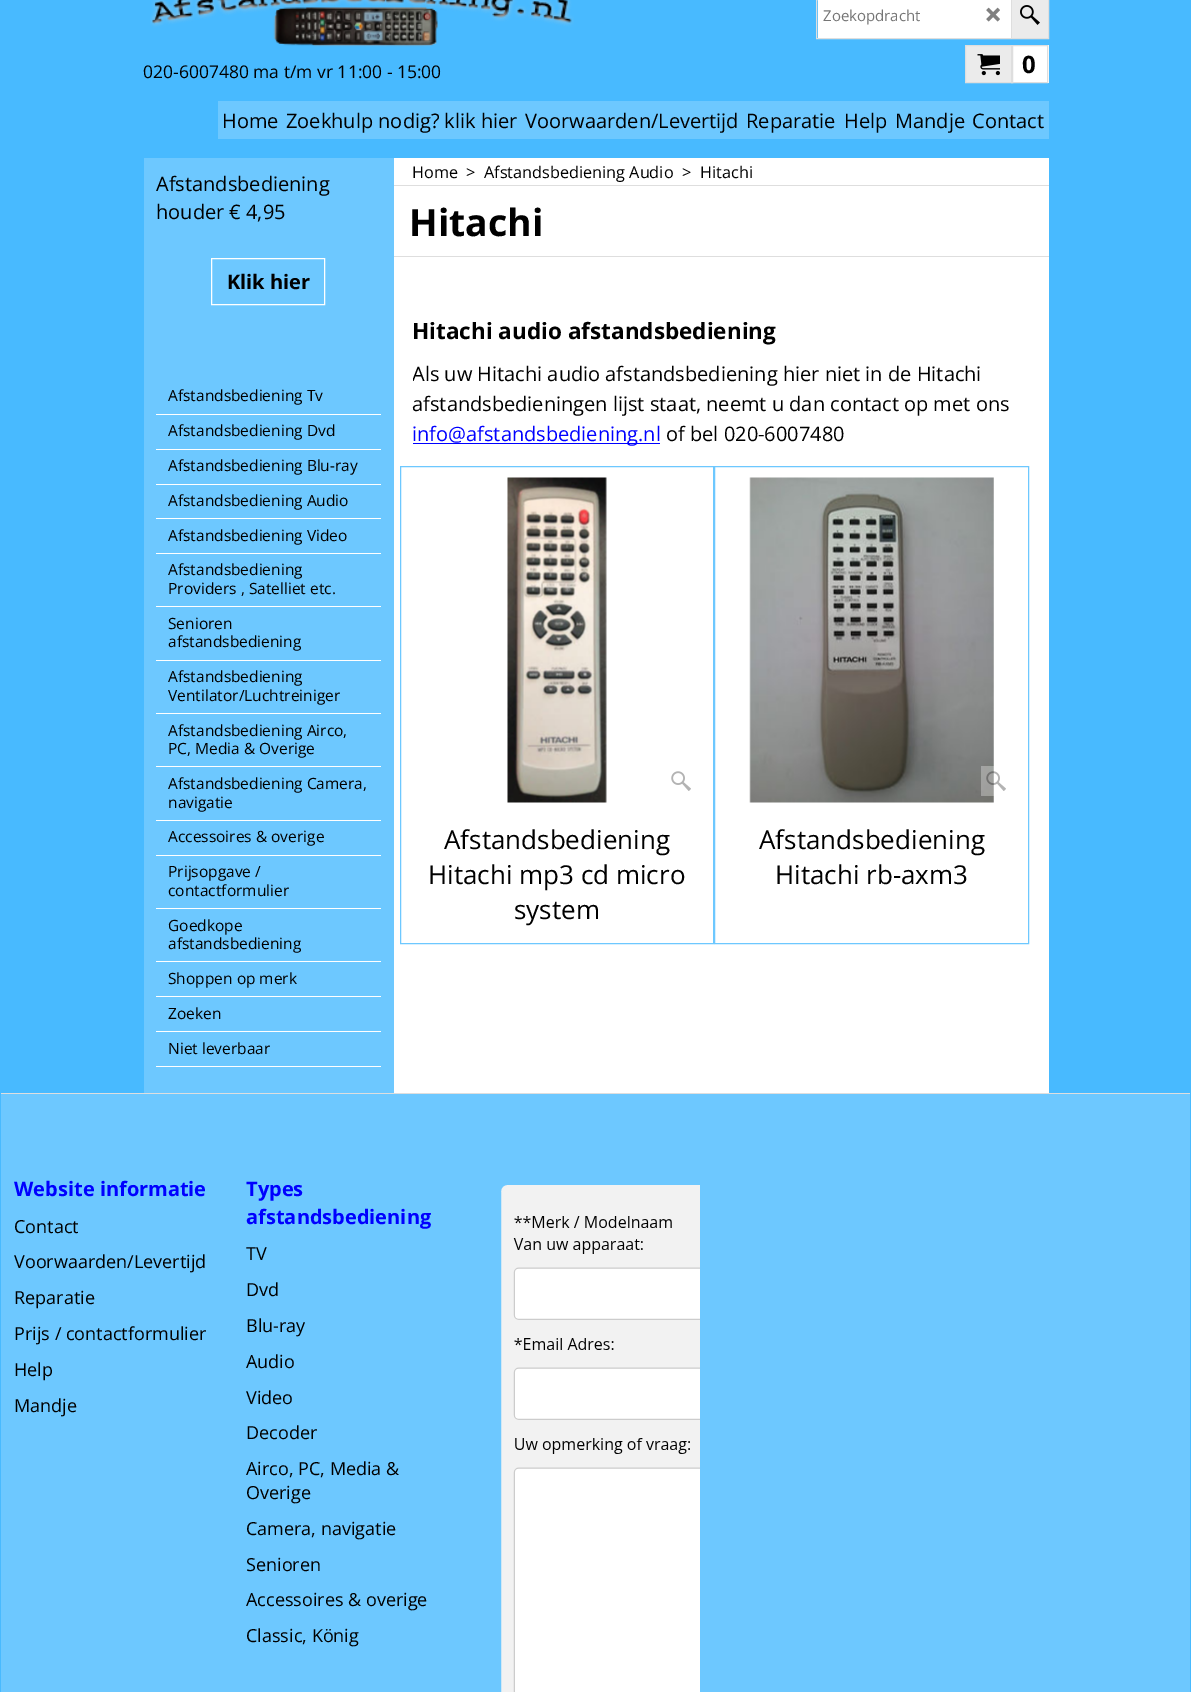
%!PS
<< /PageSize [1191 1692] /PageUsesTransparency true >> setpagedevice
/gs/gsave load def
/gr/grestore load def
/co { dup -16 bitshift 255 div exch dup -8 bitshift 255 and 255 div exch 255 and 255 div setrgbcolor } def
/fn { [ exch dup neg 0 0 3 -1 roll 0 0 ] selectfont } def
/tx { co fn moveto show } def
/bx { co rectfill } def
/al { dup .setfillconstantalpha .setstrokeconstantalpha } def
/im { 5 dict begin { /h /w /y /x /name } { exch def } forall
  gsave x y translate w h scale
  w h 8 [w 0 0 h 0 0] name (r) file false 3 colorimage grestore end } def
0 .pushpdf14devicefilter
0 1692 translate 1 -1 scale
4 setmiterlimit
0 0 1191 1692 16#48BAFF bx
(media/1.raw) 150 0 424 47 im
16#DEDEDE co
816.5 -.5 232 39 rectstroke
818 0 193 38 16#FFFFFF bx
(media/2.raw) 986 7 14 15 im
1012 0 36 38 16#EBEBEB bx
1011 0 1 38 16#DEDEDE bx
(media/3.raw) 1020 5 20 20 im
1013 45 36 38 16#FFFFFF bx
966 46 45 36 16#EBEBEB bx
16#DEDEDE co
965.5 45.5 47 37 rectstroke
(media/4.raw) 977 54 23 22 im
1011.5 45.5 36 37 rectstroke
218 101 831 38 16#6DC8FF bx
144 158 250 935 16#6DC8FF bx
16#FFFFFF co
211.5 258.5 113 46 rectstroke
156 414 225 1 16#FFFFFF bx
156 449 225 1 16#FFFFFF bx
156 484 225 1 16#FFFFFF bx
156 518 225 1 16#FFFFFF bx
156 553 225 1 16#FFFFFF bx
156 606 225 1 16#FFFFFF bx
156 660 225 1 16#FFFFFF bx
156 713 225 1 16#FFFFFF bx
156 766 225 1 16#FFFFFF bx
156 820 225 1 16#FFFFFF bx
156 855 225 1 16#FFFFFF bx
156 908 225 1 16#FFFFFF bx
156 961 225 1 16#FFFFFF bx
156 996 225 1 16#FFFFFF bx
156 1031 225 1 16#FFFFFF bx
156 1066 225 1 16#FFFFFF bx
394 158 655 935 16#FFFFFF bx
394 185 655 1 16#DEDEDE bx
394 256 655 1 16#DEDEDE bx
413 443 247 1 16#0000FF bx
16#6DC8FF co
400.5 466.5 313 477 rectstroke
(media/5.raw) 507 477 100 326 im
(media/6.raw) 671 771 20 20 im
714.5 466.5 314 477 rectstroke
(media/7.raw) 749 477 245 326 im
0.3 al
981 766 13 30 16#FFFFFF bx
1 al
(media/8.raw) 986 771 20 20 im
1 1094 1189 598 16#6DC8FF bx
1 1093 1189 1 16#DEDEDE bx
(media/9.raw) 501 1185 199 507 im
(020-6007480 ma t/m vr 11:00 - 15:00) 143 78 /OpenSans-Regular 17.5 16#000000 tx
(Zoekopdracht) 823 21 /OpenSans-Regular 15 16#757575 tx
(0) 1022 73 /OpenSans-Bold 24 16#000000 tx
(Home) 222 128 /OpenSans-Regular 20 16#000000 tx
(Zoekhulp nodig? klik hier) 286 128 /OpenSans-Regular 20 16#000000 tx
(Voorwaarden/Levertijd) 525 128 /OpenSans-Regular 20 16#000000 tx
(Reparatie) 746 128 /OpenSans-Regular 20 16#000000 tx
(Help) 844 128 /OpenSans-Regular 20 16#000000 tx
(Mandje) 895 128 /OpenSans-Regular 20 16#000000 tx
(Contact) 972 128 /OpenSans-Regular 20 16#000000 tx
(Afstandsbediening) 156 191 /OpenSans-Regular 20 16#000000 tx
(houder € 4,95) 156 219 /OpenSans-Regular 20 16#000000 tx
(Klik hier) 227 289 /OpenSans-Bold 20 16#000000 tx
(Afstandsbediening Tv) 168 401 /OpenSans-Regular 15.5 16#000000 tx
(Afstandsbediening Dvd) 168 436 /OpenSans-Regular 15.5 16#000000 tx
(Afstandsbediening Blu-ray) 168 471 /OpenSans-Regular 15.5 16#000000 tx
(Afstandsbediening Audio) 168 506 /OpenSans-Regular 15.5 16#000000 tx
(Afstandsbediening Video) 168 541 /OpenSans-Regular 15.5 16#000000 tx
(Afstandsbediening) 168 575 /OpenSans-Regular 15.5 16#000000 tx
(Providers , Satelliet etc.) 168 594 /OpenSans-Regular 15.5 16#000000 tx
(Senioren) 168 629 /OpenSans-Regular 15.5 16#000000 tx
(afstandsbediening) 168 647 /OpenSans-Regular 15.5 16#000000 tx
(Afstandsbediening) 168 682 /OpenSans-Regular 15.5 16#000000 tx
(Ventilator/Luchtreiniger) 168 701 /OpenSans-Regular 15.5 16#000000 tx
(Afstandsbediening Airco,) 168 736 /OpenSans-Regular 15.5 16#000000 tx
(PC, Media & Overige) 168 754 /OpenSans-Regular 15.5 16#000000 tx
(Afstandsbediening Camera,) 168 789 /OpenSans-Regular 15.5 16#000000 tx
(navigatie) 168 808 /OpenSans-Regular 15.5 16#000000 tx
(Accessoires & overige) 168 842 /OpenSans-Regular 15.5 16#000000 tx
(Prijsopgave /) 168 877 /OpenSans-Regular 15.5 16#000000 tx
(contactformulier) 168 896 /OpenSans-Regular 15.5 16#000000 tx
(Goedkope) 168 931 /OpenSans-Regular 15.5 16#000000 tx
(afstandsbediening) 168 949 /OpenSans-Regular 15.5 16#000000 tx
(Shoppen op merk) 168 984 /OpenSans-Regular 15.5 16#000000 tx
(Zoeken) 168 1019 /OpenSans-Regular 15.5 16#000000 tx
(Niet leverbaar) 168 1054 /OpenSans-Regular 15.5 16#000000 tx
(Home) 412 178 /OpenSans-Regular 16.25 16#000000 tx
(>) 466 178 /OpenSans-Regular 16.25 16#000000 tx
(Afstandsbediening Audio) 484 178 /OpenSans-Regular 16.25 16#000000 tx
(>) 682 178 /OpenSans-Regular 16.25 16#000000 tx
(Hitachi) 700 178 /OpenSans-Regular 16.25 16#000000 tx
(Hitachi) 409 236 /OpenSans-Bold 37.5 16#000000 tx
(Hitachi audio afstandsbediening) 412 339 /OpenSans-Bold 22.5 16#000000 tx
gs
413 359 617 102 rectclip
(Als uw Hitachi audio afstandsbediening hier niet in de Hitachi) 412 381 /OpenSans-Regular 20 16#000000 tx
gr
(afstandsbedieningen lijst staat, neemt u dan contact op met ons) 412 411 /OpenSans-Regular 20 16#000000 tx
(info@afstandsbediening.nl) 412 441 /OpenSans-Regular 20 16#0000FF tx
(of bel 020-6007480) 666 441 /OpenSans-Regular 20 16#000000 tx
(Afstandsbediening) 444 849 /OpenSans-Regular 26 16#000000 tx
(Hitachi mp3 cd micro) 428 884 /OpenSans-Regular 26 16#000000 tx
(system) 514 919 /OpenSans-Regular 26 16#000000 tx
(Afstandsbediening) 759 849 /OpenSans-Regular 26 16#000000 tx
(Hitachi rb-axm3) 775 884 /OpenSans-Regular 26 16#000000 tx
(Website informatie) 14 1196 /OpenSans-Bold 20 16#0000FF tx
(Contact) 14 1233 /OpenSans-Regular 18 16#000000 tx
(Voorwaarden/Levertijd) 14 1268 /OpenSans-Regular 18 16#000000 tx
(Reparatie) 14 1304 /OpenSans-Regular 18 16#000000 tx
(Prijs / contactformulier) 14 1340 /OpenSans-Regular 18 16#000000 tx
(Help) 14 1376 /OpenSans-Regular 18 16#000000 tx
(Mandje) 14 1412 /OpenSans-Regular 18 16#000000 tx
(Types) 246 1196 /OpenSans-Bold 20 16#0000FF tx
(afstandsbediening) 246 1224 /OpenSans-Bold 20 16#0000FF tx
(TV) 246 1260 /OpenSans-Regular 18 16#000000 tx
(Dvd) 246 1296 /OpenSans-Regular 18 16#000000 tx
(Blu-ray) 246 1332 /OpenSans-Regular 18 16#000000 tx
(Audio) 246 1368 /OpenSans-Regular 18 16#000000 tx
(Video) 246 1404 /OpenSans-Regular 18 16#000000 tx
(Decoder) 246 1439 /OpenSans-Regular 18 16#000000 tx
(Airco, PC, Media &) 246 1475 /OpenSans-Regular 18 16#000000 tx
(Overige) 246 1499 /OpenSans-Regular 18 16#000000 tx
(Camera, navigatie) 246 1535 /OpenSans-Regular 18 16#000000 tx
(Senioren) 246 1571 /OpenSans-Regular 18 16#000000 tx
(Accessoires & overige) 246 1606 /OpenSans-Regular 18 16#000000 tx
(Classic, König) 246 1642 /OpenSans-Regular 18 16#000000 tx
.poppdf14devicefilter showpage
